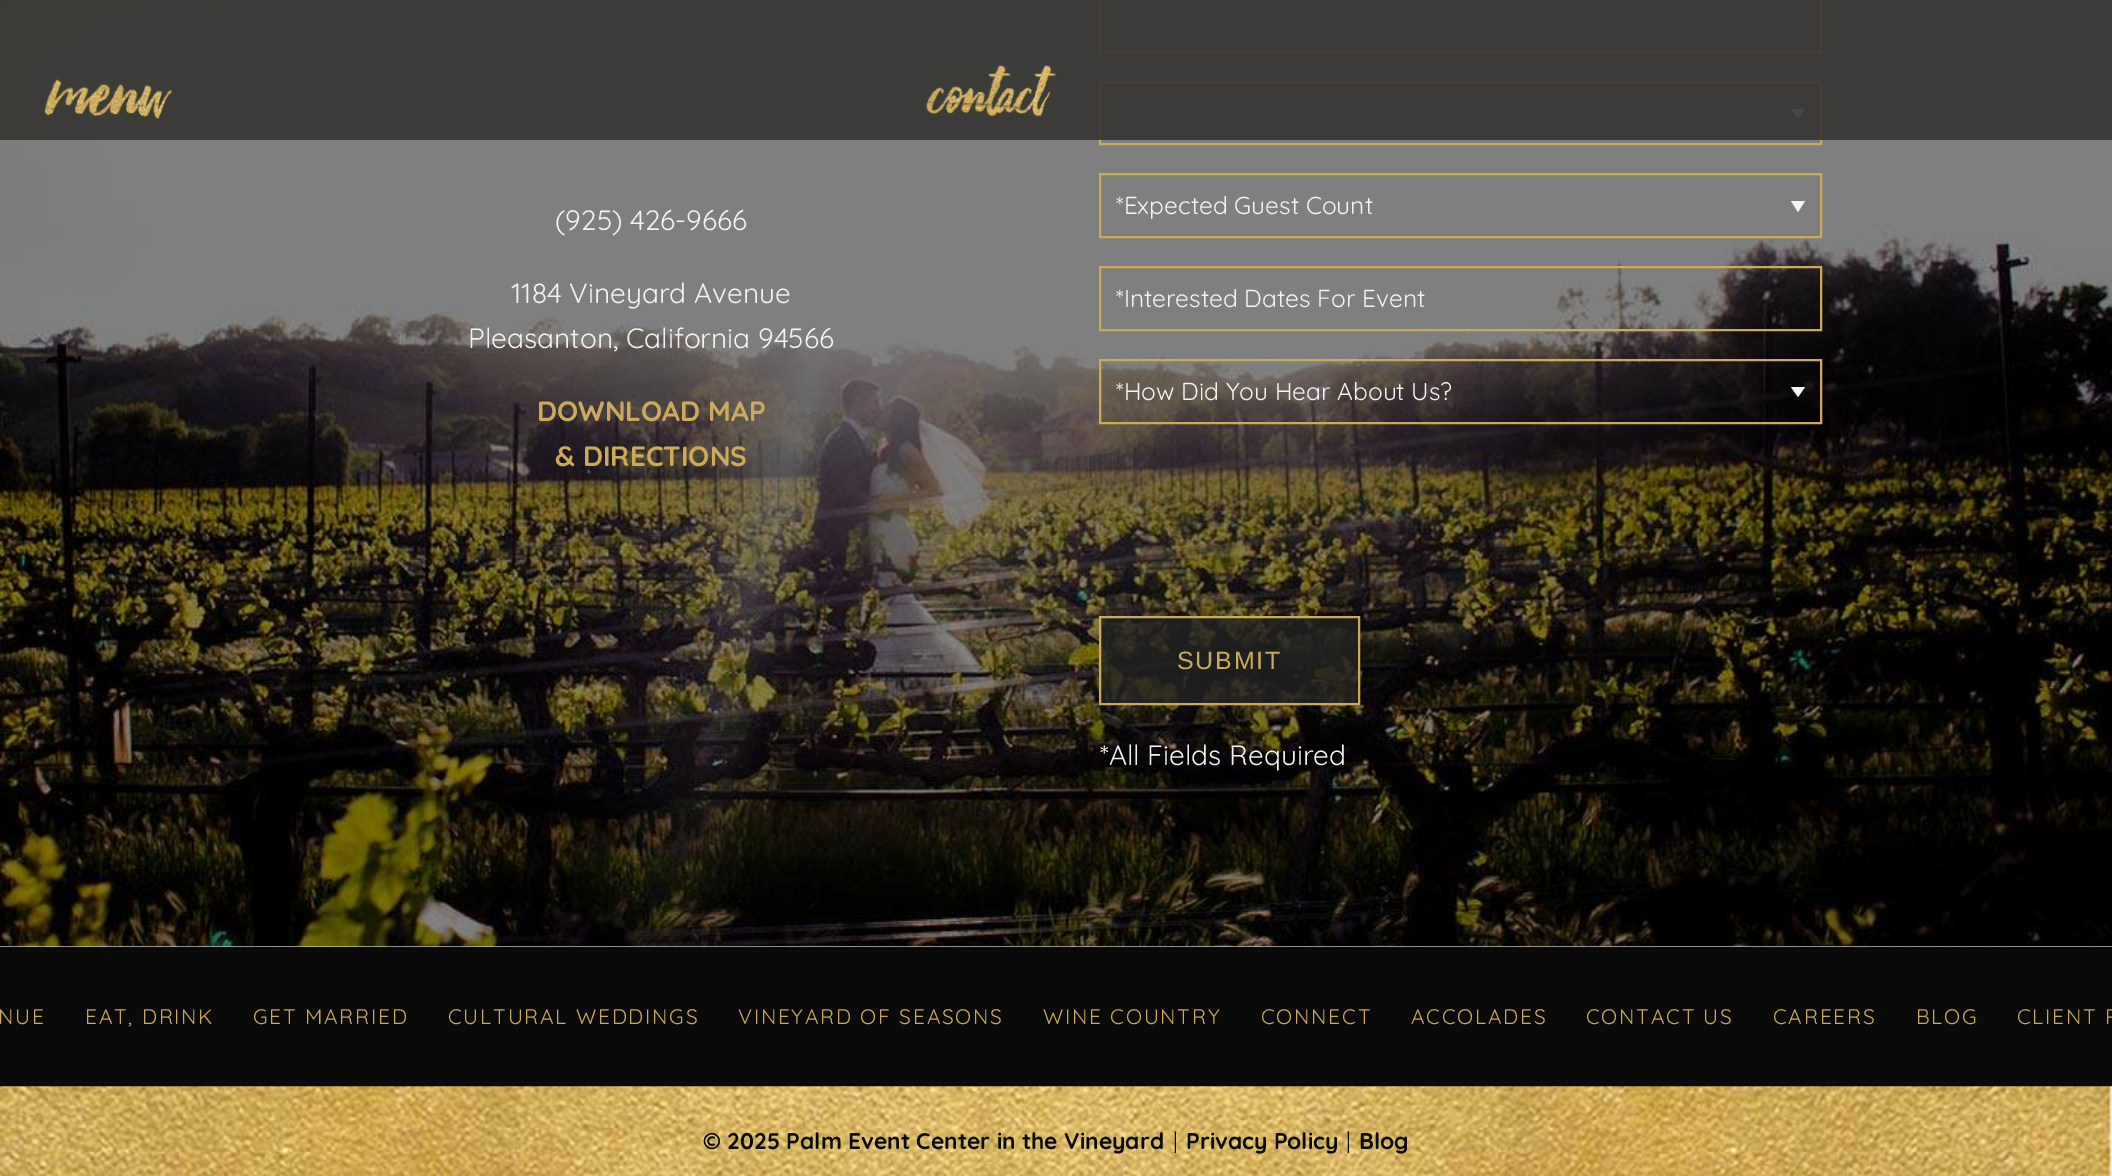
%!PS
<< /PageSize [2112 1176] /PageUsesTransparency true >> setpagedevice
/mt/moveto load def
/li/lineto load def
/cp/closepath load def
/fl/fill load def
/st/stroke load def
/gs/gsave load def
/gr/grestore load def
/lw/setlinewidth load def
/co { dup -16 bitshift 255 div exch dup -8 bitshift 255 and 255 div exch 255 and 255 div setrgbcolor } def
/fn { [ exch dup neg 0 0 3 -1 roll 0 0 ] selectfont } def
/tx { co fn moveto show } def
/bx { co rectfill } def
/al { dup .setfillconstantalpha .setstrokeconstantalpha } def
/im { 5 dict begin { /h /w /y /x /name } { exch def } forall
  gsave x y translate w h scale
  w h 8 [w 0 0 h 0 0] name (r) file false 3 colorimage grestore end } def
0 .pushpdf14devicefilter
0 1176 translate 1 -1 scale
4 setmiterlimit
0 0 2112 1176 16#FFFFFF bx
(media/1.raw) 0 946 2112 1 im
(media/4.raw) 0 0 2112 947 im
16#CCAA5A co
2 lw
1100 -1 721 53 rectstroke
gs
1790 109 16 10 rectclip
16#F4F4F4 co
1791 108.5 mt 1805 108.5 li 1798 119 li cp fl
gr
1100 82 721 62 rectstroke
0.9 al
0 0 2112 140 16#353431 bx
1 al
(media/2.raw) 44 79 129 40 im
(media/3.raw) 926 65 131 52 im
16#F4F4F4 co
1791 201 mt 1805 201 li 1798 212 li cp fl
16#CCAA5A co
1100 174 721 63 rectstroke
1100 267 721 63 rectstroke
16#F4F4F4 co
1791 387 mt 1805 387 li 1798 397 li cp fl
16#CCAA5A co
1100 360 721 63 rectstroke
0.8 al
16#222222 co
1100 617 mt 1359 617 li 1359 704 li 1100 704 li cp fl
1 al
16#CCAA5A co
1100 617 mt 1359 617 li 1359 704 li 1100 704 li cp st
0 947 2112 140 16#0A0A0A bx
(media/5.raw) 0 1086 2112 90 im
(\(925\) 426-9666) 555 230 /Quicksand-Regular 28 16#F4F4F4 tx
(1184 Vineyard Avenue) 511 303 /Quicksand-Regular 28 16#F4F4F4 tx
(Pleasanton, California 94566) 468 348 /Quicksand-Regular 28 16#F4F4F4 tx
(DOWNLOAD MAP) 537 421 /Quicksand-Bold 28 16#CCAA5A tx
(& DIRECTIONS) 555 466 /Quicksand-Bold 28 16#CCAA5A tx
(*Expected Guest Count) 1116 214 /Quicksand-Regular 24.5 16#F4F4F4 tx
(*Interested Dates For Event) 1116 307 /Quicksand-Regular 24.5 16#F4F4F4 tx
(*How Did You Hear About Us?) 1116 400 /Quicksand-Regular 24.5 16#F4F4F4 tx
/LiberationSans-Regular 25 fn
16#CCAA5A co
1177 669 mt 1.75 0 (SUBMIT) ashow
(*All Fields Required) 1100 765 /Quicksand-Regular 28 16#F4F4F4 tx
/Quicksand-Regular 21 fn
16#CCAA5A co
-2 1024 mt 1.75 0 (NUE) ashow
85 1024 mt 1.75 0 (EAT, DRINK) ashow
253 1024 mt 1.75 0 (GET MARRIED) ashow
448 1024 mt 1.75 0 (CULTURAL WEDDINGS) ashow
738 1024 mt 1.75 0 (VINEYARD OF SEASONS) ashow
1043 1024 mt 1.75 0 (WINE COUNTRY) ashow
1261 1024 mt 1.75 0 (CONNECT) ashow
1411 1024 mt 1.75 0 (ACCOLADES) ashow
1586 1024 mt 1.75 0 (CONTACT US) ashow
1773 1024 mt 1.75 0 (CAREERS) ashow
1916 1024 mt 1.75 0 (BLOG) ashow
2017 1024 mt 1.75 0 (CLIENT P) ashow
(© 2025 Palm Event Center in the Vineyard) 703 1149 /Quicksand-Bold 22.75 16#0A0A0A tx
(|) 1173 1149 /Quicksand-Regular 22.75 16#0A0A0A tx
(Privacy Policy) 1186 1149 /Quicksand-Bold 22.75 16#0A0A0A tx
(|) 1346 1149 /Quicksand-Regular 22.75 16#0A0A0A tx
(Blog) 1359 1149 /Quicksand-Bold 22.75 16#0A0A0A tx
.poppdf14devicefilter showpage
